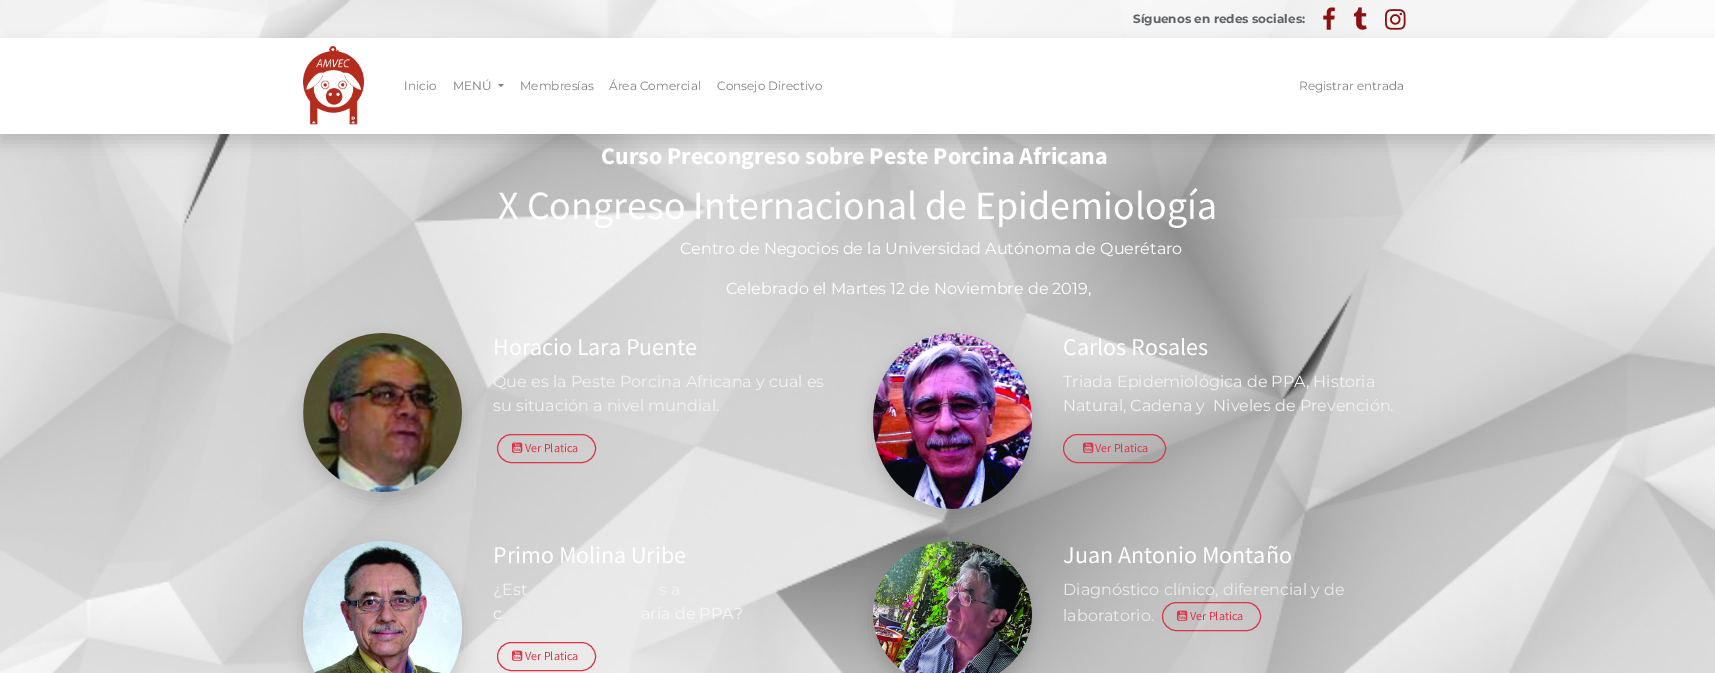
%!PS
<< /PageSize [1715 673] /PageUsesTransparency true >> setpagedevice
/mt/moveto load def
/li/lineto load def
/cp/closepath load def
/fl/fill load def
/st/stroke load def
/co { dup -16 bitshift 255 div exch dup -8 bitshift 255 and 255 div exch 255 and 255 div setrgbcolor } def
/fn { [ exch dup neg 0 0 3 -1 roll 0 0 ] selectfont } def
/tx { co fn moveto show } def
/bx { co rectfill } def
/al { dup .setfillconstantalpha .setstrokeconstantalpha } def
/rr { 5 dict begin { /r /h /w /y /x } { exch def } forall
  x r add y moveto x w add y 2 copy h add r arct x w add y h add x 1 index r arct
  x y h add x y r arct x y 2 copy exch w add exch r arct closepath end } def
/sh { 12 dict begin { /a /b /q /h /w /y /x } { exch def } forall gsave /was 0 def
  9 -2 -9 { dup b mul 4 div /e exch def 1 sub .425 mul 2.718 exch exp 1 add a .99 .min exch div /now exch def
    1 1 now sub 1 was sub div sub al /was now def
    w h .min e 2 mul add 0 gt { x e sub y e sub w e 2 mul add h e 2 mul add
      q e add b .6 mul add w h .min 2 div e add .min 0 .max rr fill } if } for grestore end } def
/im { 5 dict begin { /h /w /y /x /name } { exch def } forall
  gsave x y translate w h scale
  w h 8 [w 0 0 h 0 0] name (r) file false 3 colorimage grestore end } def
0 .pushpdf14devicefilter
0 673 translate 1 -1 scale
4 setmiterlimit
0 0 1715 673 16#FFFFFF bx
(media/1.raw) 0 0 1715 673 im
0.75 al
0 0 1715 38 16#FFFFFF bx
1 al
(media/2.raw) 1323 7 12 23 im
(media/3.raw) 1353 7 14 23 im
(media/4.raw) 1385 9 21 21 im
16#000000 co
0 46 1715 96 0 8 .15 sh
0 38 1715 96 16#FFFFFF bx
(media/5.raw) 303 46 61 79 im
16#808080 co
498 84 mt 504 84 li 501 87 li cp fl
16#000000 co
303 341 159 159 79.5 8 .15 sh
(media/6.raw) 303 333 159 159 im
16#DC3545 co
497.5 434.5 98 28 14 rr st
(media/7.raw) 512 442 11 11 im
16#000000 co
873 341 159 176 79.5 8 .15 sh
(media/8.raw) 873 333 159 176 im
16#DC3545 co
1063.5 434.5 102 28 14 rr st
(media/9.raw) 1083 442 11 11 im
16#000000 co
303 549 159 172 79.5 8 .15 sh
(media/10.raw) 303 541 159 132 im
16#DC3545 co
497.5 642.5 98 28 14 rr st
(media/11.raw) 512 650 11 11 im
16#000000 co
873 549 159 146 73 8 .15 sh
(media/12.raw) 873 541 159 132 im
16#DC3545 co
1162.5 602.5 98 28 14 rr st
(media/13.raw) 1177 610 11 11 im
(Síguenos en redes sociales:) 1133 23 /Montserrat-Bold 12 16#606366 tx
(Inicio) 404 90 /Montserrat-Regular 12 16#808080 tx
(MENÚ) 453 90 /Montserrat-Regular 12 16#808080 tx
(Membresías) 520 90 /Montserrat-Regular 12 16#808080 tx
(Área Comercial) 609 90 /Montserrat-Regular 12 16#808080 tx
(Consejo Directivo) 717 90 /Montserrat-Regular 12 16#808080 tx
(Registrar entrada) 1299 90 /Montserrat-Regular 12 16#808080 tx
(Curso Precongreso sobre Peste Porcina Africana) 601 164 /SourceSansPro-Bold 24 16#FFFFFF tx
(X Congreso Internacional de Epidemiología) 498 219 /SourceSansPro-Regular 40 16#FFFFFF tx
(Centro de Negocios de la Universidad Autónoma de Querétaro) 680 254 /Montserrat-Regular 16 16#FFFFFF tx
(Celebrado el Martes 12 de Noviembre de 2019,) 726 294 /Montserrat-Regular 16 16#FFFFFF tx
(Horacio Lara Puente) 493 355 /SourceSansPro-Regular 24 16#FFFFFF tx
(Que es la Peste Porcina Africana y cual es) 493 387 /Montserrat-Regular 16 16#F2F2F2 tx
(su situación a nivel mundial.) 493 411 /Montserrat-Regular 16 16#F2F2F2 tx
(Ver Platica) 525 452 /SourceSansPro-Regular 12 16#DC3545 tx
(Carlos Rosales) 1063 355 /SourceSansPro-Regular 24 16#FFFFFF tx
(Triada Epidemiológica de PPA, Historia) 1063 387 /Montserrat-Regular 16 16#F2F2F2 tx
(Natural, Cadena y  Niveles de Prevención.) 1063 411 /Montserrat-Regular 16 16#F2F2F2 tx
(Ver Platica) 1095 452 /SourceSansPro-Regular 12 16#DC3545 tx
(Primo Molina Uribe) 493 563 /SourceSansPro-Regular 24 16#FFFFFF tx
(¿Est) 493 595 /Montserrat-Regular 16 16#F2F2F2 tx
(s a) 659 595 /Montserrat-Regular 16 16#F2F2F2 tx
(c) 493 619 /Montserrat-Regular 16 16#F8F8F8 tx
(aria de PPA?) 641 619 /Montserrat-Regular 16 16#F8F8F8 tx
(Ver Platica) 525 660 /SourceSansPro-Regular 12 16#DC3545 tx
(Juan Antonio Montaño) 1063 563 /SourceSansPro-Regular 24 16#FFFFFF tx
(Diagnóstico clínico, diferencial y de) 1063 595 /Montserrat-Regular 16 16#EBEBEB tx
(laboratorio.) 1063 621 /Montserrat-Regular 16 16#EBEBEB tx
(Ver Platica) 1190 620 /SourceSansPro-Regular 12 16#DC3545 tx
.poppdf14devicefilter showpage
